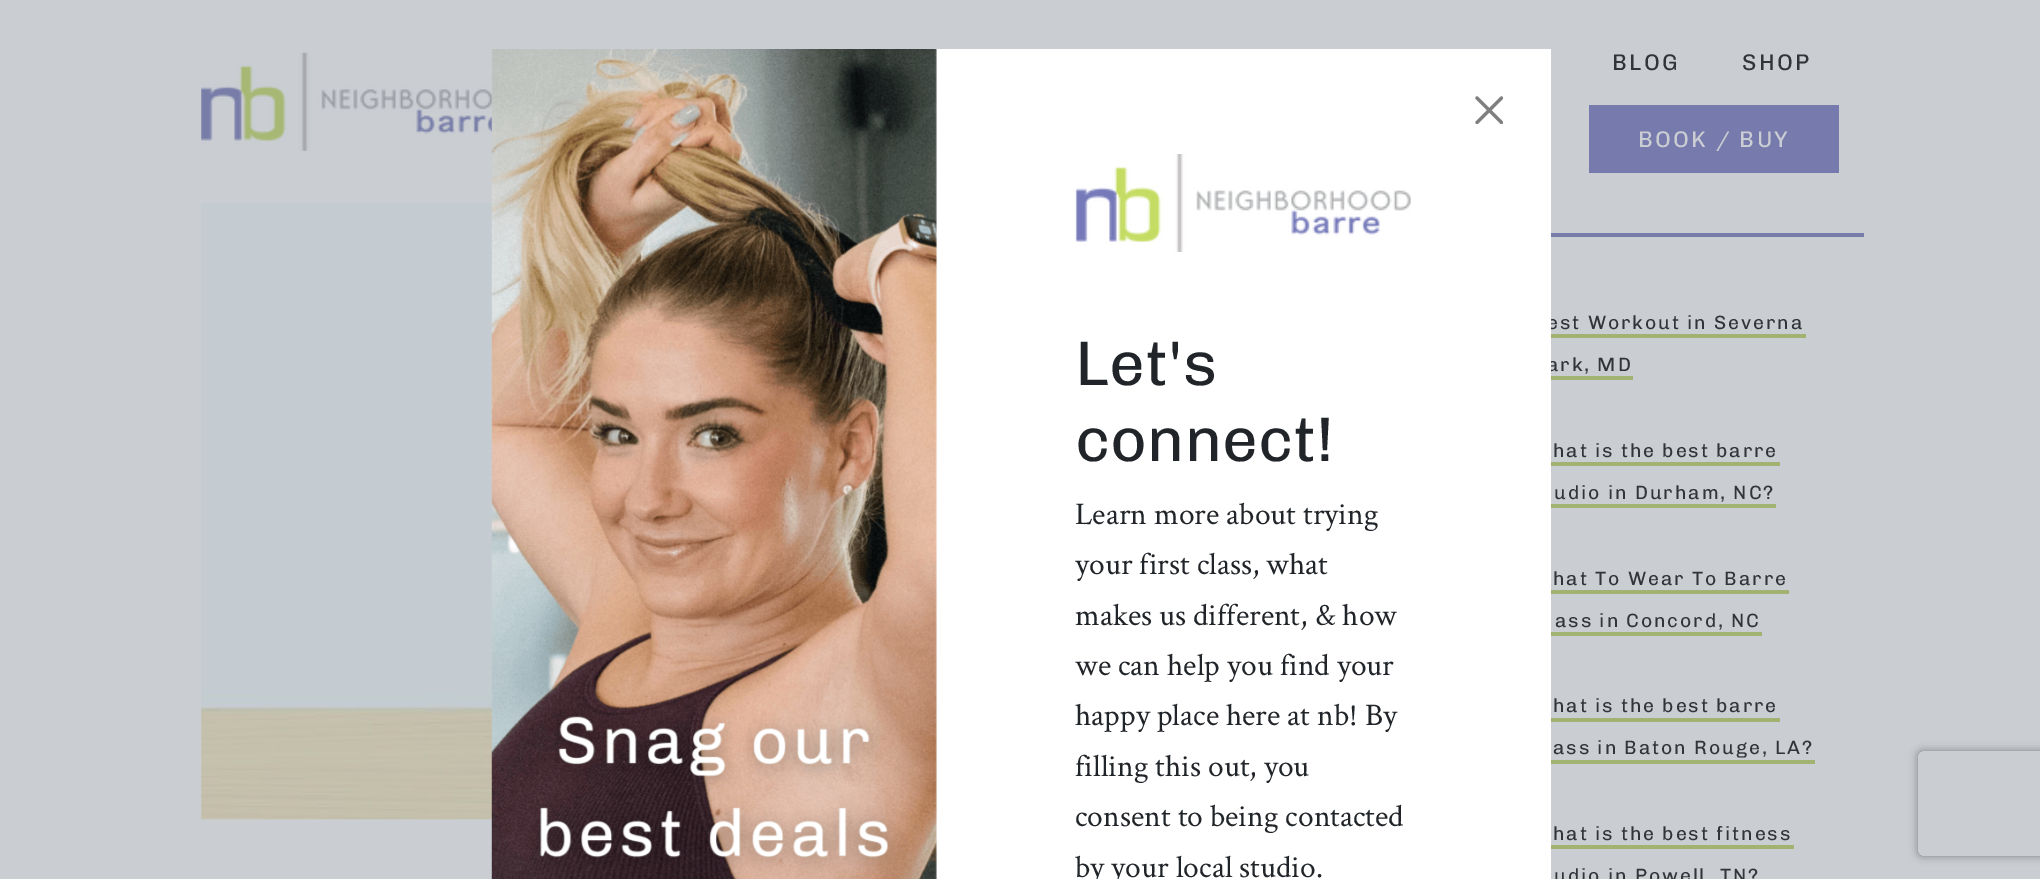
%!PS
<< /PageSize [2040 879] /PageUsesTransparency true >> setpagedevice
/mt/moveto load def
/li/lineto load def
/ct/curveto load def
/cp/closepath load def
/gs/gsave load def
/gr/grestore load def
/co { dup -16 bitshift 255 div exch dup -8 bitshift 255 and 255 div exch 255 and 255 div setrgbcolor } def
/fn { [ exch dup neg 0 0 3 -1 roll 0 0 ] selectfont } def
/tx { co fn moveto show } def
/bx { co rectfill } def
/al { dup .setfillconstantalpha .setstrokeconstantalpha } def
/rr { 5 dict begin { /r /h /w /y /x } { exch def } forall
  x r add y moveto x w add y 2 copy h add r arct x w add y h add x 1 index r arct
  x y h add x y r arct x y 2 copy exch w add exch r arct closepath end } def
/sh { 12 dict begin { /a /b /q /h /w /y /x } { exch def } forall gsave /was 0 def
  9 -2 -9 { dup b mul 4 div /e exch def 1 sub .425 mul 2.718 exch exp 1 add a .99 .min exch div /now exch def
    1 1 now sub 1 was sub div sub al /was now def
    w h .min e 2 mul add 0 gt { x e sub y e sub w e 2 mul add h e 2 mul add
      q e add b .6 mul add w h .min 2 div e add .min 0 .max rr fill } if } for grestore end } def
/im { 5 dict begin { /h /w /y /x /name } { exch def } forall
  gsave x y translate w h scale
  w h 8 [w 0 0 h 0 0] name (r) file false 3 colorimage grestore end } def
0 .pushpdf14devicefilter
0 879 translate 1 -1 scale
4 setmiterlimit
0 0 2040 879 16#CACDD2 bx
(media/1.raw) 201 52 291 99 im
1589 105 250 68 16#767AAD bx
(media/5.raw) 201 203 291 617 im
1551 233 313 4 16#787CA8 bx
1551 334 255 4 16#A2B271 bx
1551 376 82 4 16#A2B271 bx
1551 462 229 4 16#A2B271 bx
1551 504 225 4 16#A2B271 bx
1551 590 238 4 16#A2B271 bx
1551 632 211 4 16#A2B271 bx
1551 718 229 4 16#A2B271 bx
1551 760 264 4 16#A2B271 bx
1551 845 243 4 16#A2B271 bx
gs
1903 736 mt 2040 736 li 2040 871 li 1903 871 li cp 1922 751 mt 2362 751 li 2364 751 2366 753 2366 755 ct 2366 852 li 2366 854 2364 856 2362 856 ct 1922 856 li 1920 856 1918 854 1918 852 ct 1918 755 li 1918 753 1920 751 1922 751 ct cp eoclip newpath
16#7E8186 co
1918 751 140 105 4 4.5 1 sh
gr
/Chivo-Regular 22.75 fn
16#313439 co
1612 70 mt 2.25 0 (BLOG) ashow
1742 70 mt 2.25 0 (SHOP) ashow
16#CACDD2 co
1638 147 mt 2.25 0 (BOOK / BUY) ashow
/Chivo-Regular 19.25 fn
16#313439 co
1547 329 mt 1.9 0 (est Workout in Severna) ashow
1547 371 mt 1.9 0 (ark, MD) ashow
935 49 616 830 16#FFFFFF bx
(media/2.raw) 1475 96 28 28 im
(by your local studio.) 1075 877 /CrimsonText-Regular 31.5 16#212529 tx
(consent to being contacted) 1075 826 /CrimsonText-Regular 31.5 16#212529 tx
(filling this out, you) 1075 776 /CrimsonText-Regular 31.5 16#212529 tx
(happy place here at nb! By) 1075 725 /CrimsonText-Regular 31.5 16#212529 tx
(we can help you find your) 1075 675 /CrimsonText-Regular 31.5 16#212529 tx
(makes us different, & how) 1075 625 /CrimsonText-Regular 31.5 16#212529 tx
(your first class, what) 1075 574 /CrimsonText-Regular 31.5 16#212529 tx
(Learn more about trying) 1075 524 /CrimsonText-Regular 31.5 16#212529 tx
(connect!) 1075 461 /Chivo-Regular 63 16#212529 tx
(Let's) 1075 385 /Chivo-Regular 63 16#212529 tx
(media/4.raw) 1075 154 336 98 im
(media/3.raw) 491 49 446 830 im
/Chivo-Regular 19.25 fn
16#313439 co
1553 457 mt 1.9 0 (hat is the best barre) ashow
1554 499 mt 1.9 0 (udio in Durham, NC?) ashow
1553 585 mt 1.9 0 (hat To Wear To Barre) ashow
1555 627 mt 1.9 0 (ass in Concord, NC) ashow
1553 712 mt 1.9 0 (hat is the best barre) ashow
1553 754 mt 1.9 0 (ass in Baton Rouge, LA?) ashow
1553 840 mt 1.9 0 (hat is the best fitness) ashow
1554 882 mt 1.9 0 (udio in Powell, TN?) ashow
.poppdf14devicefilter showpage
